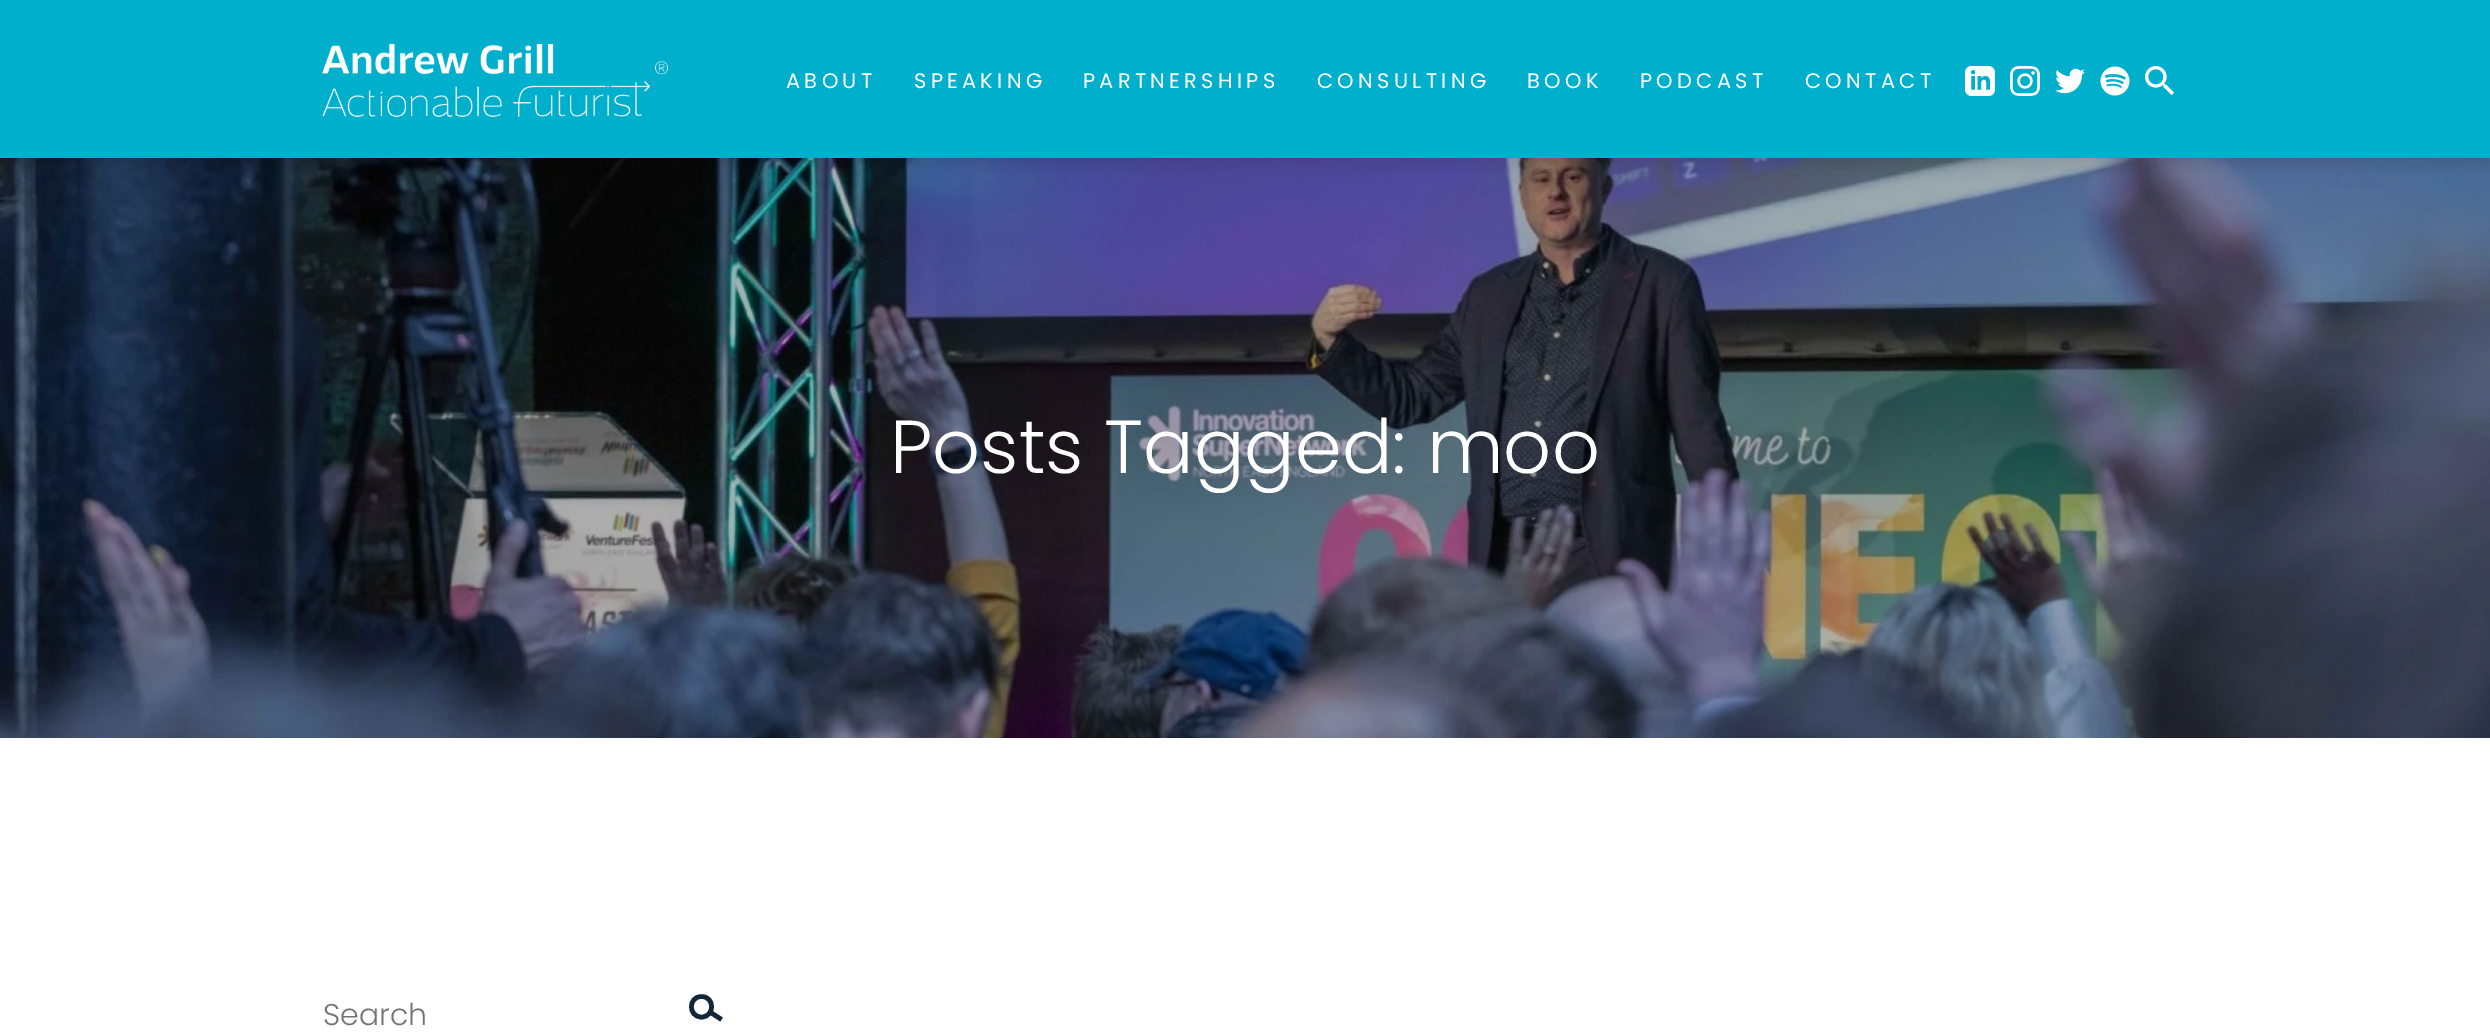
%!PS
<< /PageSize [2490 1033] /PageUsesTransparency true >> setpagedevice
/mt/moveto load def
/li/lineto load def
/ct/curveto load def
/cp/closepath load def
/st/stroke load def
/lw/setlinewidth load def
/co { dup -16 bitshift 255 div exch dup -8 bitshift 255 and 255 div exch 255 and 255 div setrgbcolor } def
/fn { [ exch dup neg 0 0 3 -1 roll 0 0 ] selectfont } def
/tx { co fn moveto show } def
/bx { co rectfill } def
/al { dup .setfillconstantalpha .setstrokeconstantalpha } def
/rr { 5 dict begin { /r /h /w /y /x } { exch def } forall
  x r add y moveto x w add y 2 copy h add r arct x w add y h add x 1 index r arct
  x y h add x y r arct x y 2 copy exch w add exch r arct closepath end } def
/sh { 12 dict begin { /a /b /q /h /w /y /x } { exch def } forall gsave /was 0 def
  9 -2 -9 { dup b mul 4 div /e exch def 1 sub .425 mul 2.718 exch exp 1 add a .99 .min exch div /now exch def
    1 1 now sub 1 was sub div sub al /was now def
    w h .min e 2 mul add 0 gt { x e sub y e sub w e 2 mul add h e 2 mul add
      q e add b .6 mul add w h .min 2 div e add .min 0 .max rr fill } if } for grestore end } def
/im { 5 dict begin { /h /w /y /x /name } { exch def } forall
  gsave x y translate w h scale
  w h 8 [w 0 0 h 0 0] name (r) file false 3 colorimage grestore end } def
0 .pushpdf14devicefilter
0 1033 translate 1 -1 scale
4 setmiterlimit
0 0 2490 1033 16#FFFFFF bx
(media/7.raw) 0 158 2490 580 im
16#000000 co
0 8 2490 157 0 7.5 .1 sh
0 0 2490 158 16#00AFCC bx
(media/1.raw) 322 43 346 74 im
(media/2.raw) 1965 66 30 30 im
(media/3.raw) 2010 66 30 30 im
(media/4.raw) 2055 68 30 26 im
(media/5.raw) 2100 66 30 30 im
(media/6.raw) 2145 66 30 30 im
16#112638 co
4.6 lw
701.5 1017 mt 715 1017 715 996.5 701.5 996.5 ct 688 996.5 688 1017 701.5 1017 ct cp 721.5 1019.5 mt 711.5 1013 li st
/Poppins-Regular 21 fn
16#FFFFFF co
786 88 mt 4.25 0 (ABOUT) ashow
914 88 mt 4.25 0 (SPEAKING) ashow
1083 88 mt 4.25 0 (PARTNERSHIPS) ashow
1317 88 mt 4.25 0 (CONSULTING) ashow
1527 88 mt 4.25 0 (BOOK) ashow
1640 88 mt 4.25 0 (PODCAST) ashow
1805 88 mt 4.25 0 (CONTACT) ashow
(Posts Tagged: moo) 890 473 /Poppins-Light 75 16#FFFFFF tx
(Search) 323 1025 /Poppins-Light 30 16#757575 tx
.poppdf14devicefilter showpage
